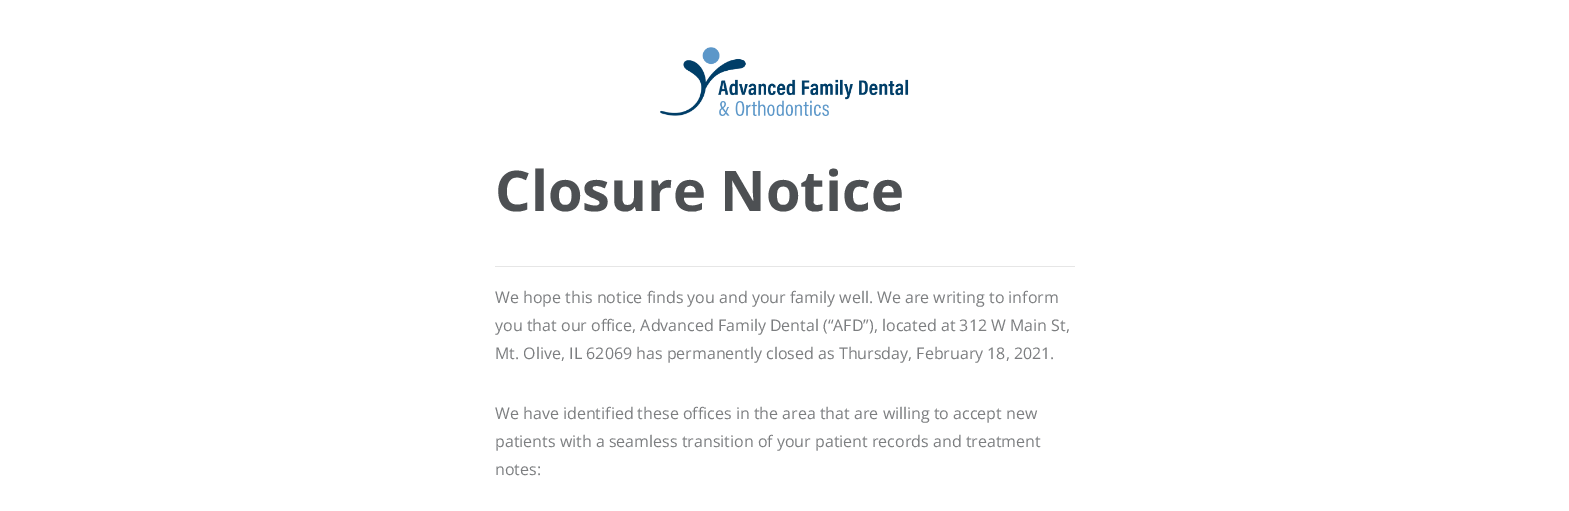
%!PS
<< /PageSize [1569 511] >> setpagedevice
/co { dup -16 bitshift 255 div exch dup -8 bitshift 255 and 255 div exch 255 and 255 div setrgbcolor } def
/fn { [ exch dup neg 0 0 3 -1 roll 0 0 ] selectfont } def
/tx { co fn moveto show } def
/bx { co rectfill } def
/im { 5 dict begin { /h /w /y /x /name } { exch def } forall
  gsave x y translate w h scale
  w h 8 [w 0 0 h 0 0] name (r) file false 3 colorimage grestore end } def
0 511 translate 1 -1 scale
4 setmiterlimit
0 0 1569 511 16#FFFFFF bx
(media/1.raw) 660 47 249 69 im
495 266 580 1 16#E6E6E6 bx
(Closure Notice) 495 211 /OpenSans-Bold 56 16#4D5053 tx
(We hope this notice finds you and your family well. We are writing to inform) 495 303 /OpenSans-Regular 16 16#7C7E80 tx
(you that our office, Advanced Family Dental \(“AFD”\), located at 312 W Main St,) 495 331 /OpenSans-Regular 16 16#7C7E80 tx
(Mt. Olive, IL 62069 has permanently closed as Thursday, February 18, 2021.) 495 359 /OpenSans-Regular 16 16#7C7E80 tx
(We have identified these offices in the area that are willing to accept new) 495 419 /OpenSans-Regular 16 16#7C7E80 tx
(patients with a seamless transition of your patient records and treatment) 495 447 /OpenSans-Regular 16 16#7C7E80 tx
(notes:) 495 475 /OpenSans-Regular 16 16#7C7E80 tx
showpage
